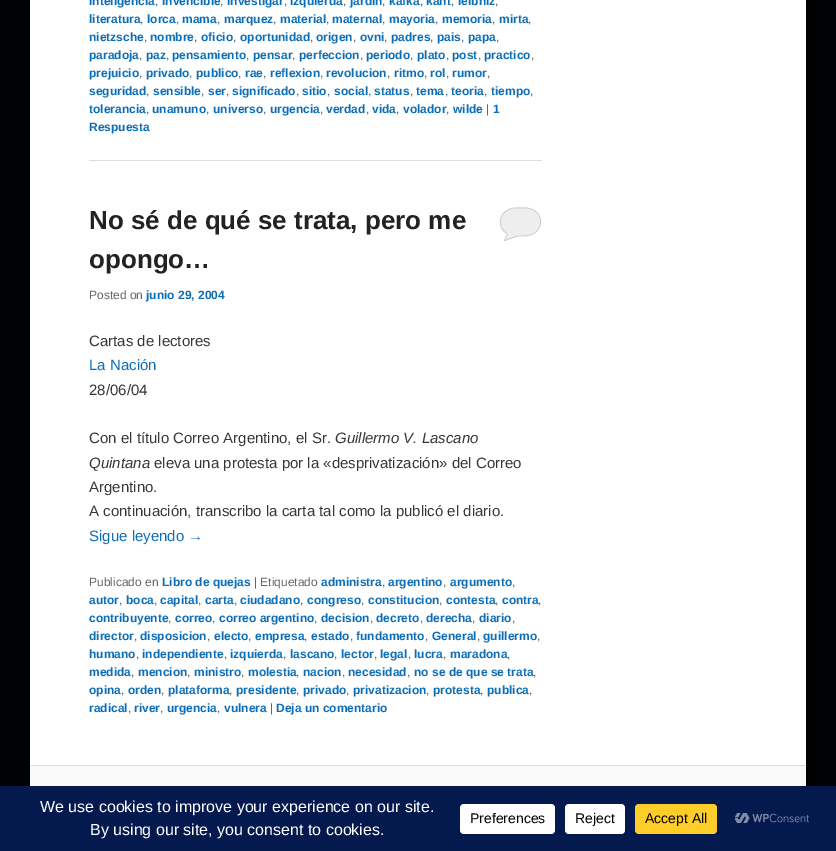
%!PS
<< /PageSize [836 851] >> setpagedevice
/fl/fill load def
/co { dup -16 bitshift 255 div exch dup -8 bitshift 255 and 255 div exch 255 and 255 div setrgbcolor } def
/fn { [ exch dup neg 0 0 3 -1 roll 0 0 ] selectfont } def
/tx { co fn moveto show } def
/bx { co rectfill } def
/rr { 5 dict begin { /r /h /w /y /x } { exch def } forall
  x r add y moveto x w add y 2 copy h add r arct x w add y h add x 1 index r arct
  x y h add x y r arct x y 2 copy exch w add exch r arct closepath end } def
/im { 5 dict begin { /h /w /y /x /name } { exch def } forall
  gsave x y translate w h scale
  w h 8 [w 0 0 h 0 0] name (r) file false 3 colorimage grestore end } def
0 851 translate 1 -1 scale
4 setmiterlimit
0 0 836 851 16#000103 bx
30 0 776 765 16#FFFFFF bx
89 160 453 1 16#DDDDDD bx
500 207 41 34 16#EEEEEE bx
(media/1.raw) 499 205 43 36 im
30 766 776 20 16#F9F9F9 bx
30 765 776 1 16#DDDDDD bx
0 786 836 65 16#04194E bx
16#FFFFFF co
460 804 95 30 4 rr fl
565 804 60 30 4 rr fl
16#FFCD2A co
635 804 82 30 4 rr fl
(media/2.raw) 734 813 75 11 im
(inteligencia) 89 5 /LiberationSans-Bold 12 16#0D6EB8 tx
(,) 155 5 /LiberationSans-Regular 12 16#666666 tx
(invencible) 162 5 /LiberationSans-Bold 12 16#0D6EB8 tx
(,) 220 5 /LiberationSans-Regular 12 16#666666 tx
(investigar) 227 5 /LiberationSans-Bold 12 16#0D6EB8 tx
(,) 284 5 /LiberationSans-Regular 12 16#666666 tx
(izquierda) 290 5 /LiberationSans-Bold 12 16#0D6EB8 tx
(,) 343 5 /LiberationSans-Regular 12 16#666666 tx
(jardin) 350 5 /LiberationSans-Bold 12 16#0D6EB8 tx
(,) 382 5 /LiberationSans-Regular 12 16#666666 tx
(kafka) 389 5 /LiberationSans-Bold 12 16#0D6EB8 tx
(,) 420 5 /LiberationSans-Regular 12 16#666666 tx
(kant) 426 5 /LiberationSans-Bold 12 16#0D6EB8 tx
(,) 451 5 /LiberationSans-Regular 12 16#666666 tx
(leibniz) 458 5 /LiberationSans-Bold 12 16#0D6EB8 tx
(,) 495 5 /LiberationSans-Regular 12 16#666666 tx
(literatura) 89 23 /LiberationSans-Bold 12 16#0D6EB8 tx
(,) 140 23 /LiberationSans-Regular 12 16#666666 tx
(lorca) 147 23 /LiberationSans-Bold 12 16#0D6EB8 tx
(,) 176 23 /LiberationSans-Regular 12 16#666666 tx
(mama) 182 23 /LiberationSans-Bold 12 16#0D6EB8 tx
(,) 217 23 /LiberationSans-Regular 12 16#666666 tx
(marquez) 224 23 /LiberationSans-Bold 12 16#0D6EB8 tx
(,) 273 23 /LiberationSans-Regular 12 16#666666 tx
(material) 280 23 /LiberationSans-Bold 12 16#0D6EB8 tx
(,) 326 23 /LiberationSans-Regular 12 16#666666 tx
(maternal) 332 23 /LiberationSans-Bold 12 16#0D6EB8 tx
(,) 382 23 /LiberationSans-Regular 12 16#666666 tx
(mayoria) 389 23 /LiberationSans-Bold 12 16#0D6EB8 tx
(,) 435 23 /LiberationSans-Regular 12 16#666666 tx
(memoria) 442 23 /LiberationSans-Bold 12 16#0D6EB8 tx
(,) 492 23 /LiberationSans-Regular 12 16#666666 tx
(mirta) 499 23 /LiberationSans-Bold 12 16#0D6EB8 tx
(,) 528 23 /LiberationSans-Regular 12 16#666666 tx
(nietzsche) 89 41 /LiberationSans-Bold 12 16#0D6EB8 tx
(,) 144 41 /LiberationSans-Regular 12 16#666666 tx
(nombre) 150 41 /LiberationSans-Bold 12 16#0D6EB8 tx
(,) 194 41 /LiberationSans-Regular 12 16#666666 tx
(oficio) 201 41 /LiberationSans-Bold 12 16#0D6EB8 tx
(,) 233 41 /LiberationSans-Regular 12 16#666666 tx
(oportunidad) 240 41 /LiberationSans-Bold 12 16#0D6EB8 tx
(,) 310 41 /LiberationSans-Regular 12 16#666666 tx
(origen) 316 41 /LiberationSans-Bold 12 16#0D6EB8 tx
(,) 353 41 /LiberationSans-Regular 12 16#666666 tx
(ovni) 360 41 /LiberationSans-Bold 12 16#0D6EB8 tx
(,) 384 41 /LiberationSans-Regular 12 16#666666 tx
(padres) 391 41 /LiberationSans-Bold 12 16#0D6EB8 tx
(,) 430 41 /LiberationSans-Regular 12 16#666666 tx
(pais) 437 41 /LiberationSans-Bold 12 16#0D6EB8 tx
(,) 461 41 /LiberationSans-Regular 12 16#666666 tx
(papa) 468 41 /LiberationSans-Bold 12 16#0D6EB8 tx
(,) 496 41 /LiberationSans-Regular 12 16#666666 tx
(paradoja) 89 59 /LiberationSans-Bold 12 16#0D6EB8 tx
(,) 139 59 /LiberationSans-Regular 12 16#666666 tx
(paz) 146 59 /LiberationSans-Bold 12 16#0D6EB8 tx
(,) 166 59 /LiberationSans-Regular 12 16#666666 tx
(pensamiento) 172 59 /LiberationSans-Bold 12 16#0D6EB8 tx
(,) 246 59 /LiberationSans-Regular 12 16#666666 tx
(pensar) 253 59 /LiberationSans-Bold 12 16#0D6EB8 tx
(,) 292 59 /LiberationSans-Regular 12 16#666666 tx
(perfeccion) 299 59 /LiberationSans-Bold 12 16#0D6EB8 tx
(,) 360 59 /LiberationSans-Regular 12 16#666666 tx
(periodo) 366 59 /LiberationSans-Bold 12 16#0D6EB8 tx
(,) 410 59 /LiberationSans-Regular 12 16#666666 tx
(plato) 417 59 /LiberationSans-Bold 12 16#0D6EB8 tx
(,) 446 59 /LiberationSans-Regular 12 16#666666 tx
(post) 452 59 /LiberationSans-Bold 12 16#0D6EB8 tx
(,) 478 59 /LiberationSans-Regular 12 16#666666 tx
(practico) 484 59 /LiberationSans-Bold 12 16#0D6EB8 tx
(,) 531 59 /LiberationSans-Regular 12 16#666666 tx
(prejuicio) 89 77 /LiberationSans-Bold 12 16#0D6EB8 tx
(,) 139 77 /LiberationSans-Regular 12 16#666666 tx
(privado) 146 77 /LiberationSans-Bold 12 16#0D6EB8 tx
(,) 189 77 /LiberationSans-Regular 12 16#666666 tx
(publico) 196 77 /LiberationSans-Bold 12 16#0D6EB8 tx
(,) 238 77 /LiberationSans-Regular 12 16#666666 tx
(rae) 245 77 /LiberationSans-Bold 12 16#0D6EB8 tx
(,) 263 77 /LiberationSans-Regular 12 16#666666 tx
(reflexion) 270 77 /LiberationSans-Bold 12 16#0D6EB8 tx
(,) 320 77 /LiberationSans-Regular 12 16#666666 tx
(revolucion) 326 77 /LiberationSans-Bold 12 16#0D6EB8 tx
(,) 387 77 /LiberationSans-Regular 12 16#666666 tx
(ritmo) 394 77 /LiberationSans-Bold 12 16#0D6EB8 tx
(,) 424 77 /LiberationSans-Regular 12 16#666666 tx
(rol) 430 77 /LiberationSans-Bold 12 16#0D6EB8 tx
(,) 446 77 /LiberationSans-Regular 12 16#666666 tx
(rumor) 452 77 /LiberationSans-Bold 12 16#0D6EB8 tx
(,) 487 77 /LiberationSans-Regular 12 16#666666 tx
(seguridad) 89 95 /LiberationSans-Bold 12 16#0D6EB8 tx
(,) 146 95 /LiberationSans-Regular 12 16#666666 tx
(sensible) 153 95 /LiberationSans-Bold 12 16#0D6EB8 tx
(,) 201 95 /LiberationSans-Regular 12 16#666666 tx
(ser) 208 95 /LiberationSans-Bold 12 16#0D6EB8 tx
(,) 226 95 /LiberationSans-Regular 12 16#666666 tx
(significado) 232 95 /LiberationSans-Bold 12 16#0D6EB8 tx
(,) 296 95 /LiberationSans-Regular 12 16#666666 tx
(sitio) 302 95 /LiberationSans-Bold 12 16#0D6EB8 tx
(,) 327 95 /LiberationSans-Regular 12 16#666666 tx
(social) 334 95 /LiberationSans-Bold 12 16#0D6EB8 tx
(,) 368 95 /LiberationSans-Regular 12 16#666666 tx
(status) 374 95 /LiberationSans-Bold 12 16#0D6EB8 tx
(,) 410 95 /LiberationSans-Regular 12 16#666666 tx
(tema) 416 95 /LiberationSans-Bold 12 16#0D6EB8 tx
(,) 445 95 /LiberationSans-Regular 12 16#666666 tx
(teoria) 451 95 /LiberationSans-Bold 12 16#0D6EB8 tx
(,) 484 95 /LiberationSans-Regular 12 16#666666 tx
(tiempo) 491 95 /LiberationSans-Bold 12 16#0D6EB8 tx
(,) 530 95 /LiberationSans-Regular 12 16#666666 tx
(tolerancia) 89 113 /LiberationSans-Bold 12 16#0D6EB8 tx
(,) 146 113 /LiberationSans-Regular 12 16#666666 tx
(unamuno) 152 113 /LiberationSans-Bold 12 16#0D6EB8 tx
(,) 206 113 /LiberationSans-Regular 12 16#666666 tx
(universo) 213 113 /LiberationSans-Bold 12 16#0D6EB8 tx
(,) 263 113 /LiberationSans-Regular 12 16#666666 tx
(urgencia) 270 113 /LiberationSans-Bold 12 16#0D6EB8 tx
(,) 320 113 /LiberationSans-Regular 12 16#666666 tx
(verdad) 326 113 /LiberationSans-Bold 12 16#0D6EB8 tx
(,) 366 113 /LiberationSans-Regular 12 16#666666 tx
(vida) 372 113 /LiberationSans-Bold 12 16#0D6EB8 tx
(,) 396 113 /LiberationSans-Regular 12 16#666666 tx
(volador) 403 113 /LiberationSans-Bold 12 16#0D6EB8 tx
(,) 446 113 /LiberationSans-Regular 12 16#666666 tx
(wilde) 453 113 /LiberationSans-Bold 12 16#0D6EB8 tx
(|) 486 113 /LiberationSans-Regular 12 16#666666 tx
(1) 493 113 /LiberationSans-Bold 12 16#0D6EB8 tx
(Respuesta) 89 131 /LiberationSans-Bold 12 16#0D6EB8 tx
(No sé de qué se trata, pero me) 89 229 /LiberationSans-Bold 26 16#222222 tx
(opongo…) 89 268 /LiberationSans-Bold 26 16#222222 tx
(Posted on) 89 299 /LiberationSans-Regular 12 16#666666 tx
(junio 29, 2004) 146 299 /LiberationSans-Bold 12 16#0D6EB8 tx
(Cartas de lectores) 89 346 /LiberationSans-Regular 15 16#373737 tx
(La Nación) 89 370 /LiberationSans-Regular 15 16#0D6EB8 tx
(28/06/04) 89 395 /LiberationSans-Regular 15 16#373737 tx
(Con el título Correo Argentino, el Sr.) 89 443 /LiberationSans-Regular 15 16#373737 tx
(Guillermo V. Lascano) 335 443 /LiberationSans-Italic 15 16#373737 tx
(Quintana) 89 468 /LiberationSans-Italic 15 16#373737 tx
(eleva una protesta por la «desprivatización» del Correo) 154 468 /LiberationSans-Regular 15 16#373737 tx
(Argentino.) 89 492 /LiberationSans-Regular 15 16#373737 tx
(A continuación, transcribo la carta tal como la publicó el diario.) 89 516 /LiberationSans-Regular 15 16#373737 tx
(Sigue leyendo →) 89 541 /LiberationSans-Regular 15 16#0D6EB8 tx
(Publicado en) 89 586 /LiberationSans-Regular 12 16#666666 tx
(Libro de quejas) 162 586 /LiberationSans-Bold 12 16#0D6EB8 tx
(| Etiquetado) 254 586 /LiberationSans-Regular 12 16#666666 tx
(administra) 321 586 /LiberationSans-Bold 12 16#0D6EB8 tx
(,) 382 586 /LiberationSans-Regular 12 16#666666 tx
(argentino) 388 586 /LiberationSans-Bold 12 16#0D6EB8 tx
(,) 443 586 /LiberationSans-Regular 12 16#666666 tx
(argumento) 450 586 /LiberationSans-Bold 12 16#0D6EB8 tx
(,) 512 586 /LiberationSans-Regular 12 16#666666 tx
(autor) 89 604 /LiberationSans-Bold 12 16#0D6EB8 tx
(,) 119 604 /LiberationSans-Regular 12 16#666666 tx
(boca) 126 604 /LiberationSans-Bold 12 16#0D6EB8 tx
(,) 154 604 /LiberationSans-Regular 12 16#666666 tx
(capital) 160 604 /LiberationSans-Bold 12 16#0D6EB8 tx
(,) 198 604 /LiberationSans-Regular 12 16#666666 tx
(carta) 205 604 /LiberationSans-Bold 12 16#0D6EB8 tx
(,) 234 604 /LiberationSans-Regular 12 16#666666 tx
(ciudadano) 240 604 /LiberationSans-Bold 12 16#0D6EB8 tx
(,) 300 604 /LiberationSans-Regular 12 16#666666 tx
(congreso) 307 604 /LiberationSans-Bold 12 16#0D6EB8 tx
(,) 361 604 /LiberationSans-Regular 12 16#666666 tx
(constitucion) 368 604 /LiberationSans-Bold 12 16#0D6EB8 tx
(,) 439 604 /LiberationSans-Regular 12 16#666666 tx
(contesta) 446 604 /LiberationSans-Bold 12 16#0D6EB8 tx
(,) 495 604 /LiberationSans-Regular 12 16#666666 tx
(contra) 502 604 /LiberationSans-Bold 12 16#0D6EB8 tx
(,) 538 604 /LiberationSans-Regular 12 16#666666 tx
(contribuyente) 89 622 /LiberationSans-Bold 12 16#0D6EB8 tx
(,) 168 622 /LiberationSans-Regular 12 16#666666 tx
(correo) 175 622 /LiberationSans-Bold 12 16#0D6EB8 tx
(,) 212 622 /LiberationSans-Regular 12 16#666666 tx
(correo argentino) 219 622 /LiberationSans-Bold 12 16#0D6EB8 tx
(,) 314 622 /LiberationSans-Regular 12 16#666666 tx
(decision) 321 622 /LiberationSans-Bold 12 16#0D6EB8 tx
(,) 370 622 /LiberationSans-Regular 12 16#666666 tx
(decreto) 376 622 /LiberationSans-Bold 12 16#0D6EB8 tx
(,) 420 622 /LiberationSans-Regular 12 16#666666 tx
(derecha) 426 622 /LiberationSans-Bold 12 16#0D6EB8 tx
(,) 472 622 /LiberationSans-Regular 12 16#666666 tx
(diario) 479 622 /LiberationSans-Bold 12 16#0D6EB8 tx
(,) 512 622 /LiberationSans-Regular 12 16#666666 tx
(director) 89 640 /LiberationSans-Bold 12 16#0D6EB8 tx
(,) 134 640 /LiberationSans-Regular 12 16#666666 tx
(disposicion) 140 640 /LiberationSans-Bold 12 16#0D6EB8 tx
(,) 207 640 /LiberationSans-Regular 12 16#666666 tx
(electo) 214 640 /LiberationSans-Bold 12 16#0D6EB8 tx
(,) 248 640 /LiberationSans-Regular 12 16#666666 tx
(empresa) 255 640 /LiberationSans-Bold 12 16#0D6EB8 tx
(,) 304 640 /LiberationSans-Regular 12 16#666666 tx
(estado) 311 640 /LiberationSans-Bold 12 16#0D6EB8 tx
(,) 350 640 /LiberationSans-Regular 12 16#666666 tx
(fundamento) 356 640 /LiberationSans-Bold 12 16#0D6EB8 tx
(,) 425 640 /LiberationSans-Regular 12 16#666666 tx
(General) 432 640 /LiberationSans-Bold 12 16#0D6EB8 tx
(,) 477 640 /LiberationSans-Regular 12 16#666666 tx
(guillermo) 483 640 /LiberationSans-Bold 12 16#0D6EB8 tx
(,) 537 640 /LiberationSans-Regular 12 16#666666 tx
(humano) 89 658 /LiberationSans-Bold 12 16#0D6EB8 tx
(,) 136 658 /LiberationSans-Regular 12 16#666666 tx
(independiente) 142 658 /LiberationSans-Bold 12 16#0D6EB8 tx
(,) 224 658 /LiberationSans-Regular 12 16#666666 tx
(izquierda) 230 658 /LiberationSans-Bold 12 16#0D6EB8 tx
(,) 283 658 /LiberationSans-Regular 12 16#666666 tx
(lascano) 290 658 /LiberationSans-Bold 12 16#0D6EB8 tx
(,) 334 658 /LiberationSans-Regular 12 16#666666 tx
(lector) 341 658 /LiberationSans-Bold 12 16#0D6EB8 tx
(,) 374 658 /LiberationSans-Regular 12 16#666666 tx
(legal) 380 658 /LiberationSans-Bold 12 16#0D6EB8 tx
(,) 408 658 /LiberationSans-Regular 12 16#666666 tx
(lucra) 414 658 /LiberationSans-Bold 12 16#0D6EB8 tx
(,) 443 658 /LiberationSans-Regular 12 16#666666 tx
(maradona) 450 658 /LiberationSans-Bold 12 16#0D6EB8 tx
(,) 507 658 /LiberationSans-Regular 12 16#666666 tx
(medida) 89 676 /LiberationSans-Bold 12 16#0D6EB8 tx
(,) 131 676 /LiberationSans-Regular 12 16#666666 tx
(mencion) 138 676 /LiberationSans-Bold 12 16#0D6EB8 tx
(,) 187 676 /LiberationSans-Regular 12 16#666666 tx
(ministro) 194 676 /LiberationSans-Bold 12 16#0D6EB8 tx
(,) 241 676 /LiberationSans-Regular 12 16#666666 tx
(molestia) 248 676 /LiberationSans-Bold 12 16#0D6EB8 tx
(,) 296 676 /LiberationSans-Regular 12 16#666666 tx
(nacion) 303 676 /LiberationSans-Bold 12 16#0D6EB8 tx
(,) 342 676 /LiberationSans-Regular 12 16#666666 tx
(necesidad) 348 676 /LiberationSans-Bold 12 16#0D6EB8 tx
(,) 407 676 /LiberationSans-Regular 12 16#666666 tx
(no se de que se trata) 414 676 /LiberationSans-Bold 12 16#0D6EB8 tx
(,) 533 676 /LiberationSans-Regular 12 16#666666 tx
(opina) 89 694 /LiberationSans-Bold 12 16#0D6EB8 tx
(,) 121 694 /LiberationSans-Regular 12 16#666666 tx
(orden) 128 694 /LiberationSans-Bold 12 16#0D6EB8 tx
(,) 161 694 /LiberationSans-Regular 12 16#666666 tx
(plataforma) 168 694 /LiberationSans-Bold 12 16#0D6EB8 tx
(,) 229 694 /LiberationSans-Regular 12 16#666666 tx
(presidente) 236 694 /LiberationSans-Bold 12 16#0D6EB8 tx
(,) 296 694 /LiberationSans-Regular 12 16#666666 tx
(privado) 303 694 /LiberationSans-Bold 12 16#0D6EB8 tx
(,) 346 694 /LiberationSans-Regular 12 16#666666 tx
(privatizacion) 353 694 /LiberationSans-Bold 12 16#0D6EB8 tx
(,) 426 694 /LiberationSans-Regular 12 16#666666 tx
(protesta) 433 694 /LiberationSans-Bold 12 16#0D6EB8 tx
(,) 480 694 /LiberationSans-Regular 12 16#666666 tx
(publica) 487 694 /LiberationSans-Bold 12 16#0D6EB8 tx
(,) 529 694 /LiberationSans-Regular 12 16#666666 tx
(radical) 89 712 /LiberationSans-Bold 12 16#0D6EB8 tx
(,) 128 712 /LiberationSans-Regular 12 16#666666 tx
(river) 134 712 /LiberationSans-Bold 12 16#0D6EB8 tx
(,) 160 712 /LiberationSans-Regular 12 16#666666 tx
(urgencia) 167 712 /LiberationSans-Bold 12 16#0D6EB8 tx
(,) 217 712 /LiberationSans-Regular 12 16#666666 tx
(vulnera) 224 712 /LiberationSans-Bold 12 16#0D6EB8 tx
(|) 270 712 /LiberationSans-Regular 12 16#666666 tx
(Deja un comentario) 276 712 /LiberationSans-Bold 12 16#0D6EB8 tx
(We use cookies to improve your experience on our site.) 40 812 /LiberationSans-Regular 16 16#FFFFFF tx
(By using our site, you consent to cookies.) 90 835 /LiberationSans-Regular 16 16#FFFFFF tx
(Preferences) 470 823 /LiberationSans-Regular 14 16#000000 tx
(Reject) 575 823 /LiberationSans-Regular 14 16#000000 tx
(Accept All) 645 823 /LiberationSans-Regular 14 16#000000 tx
showpage
